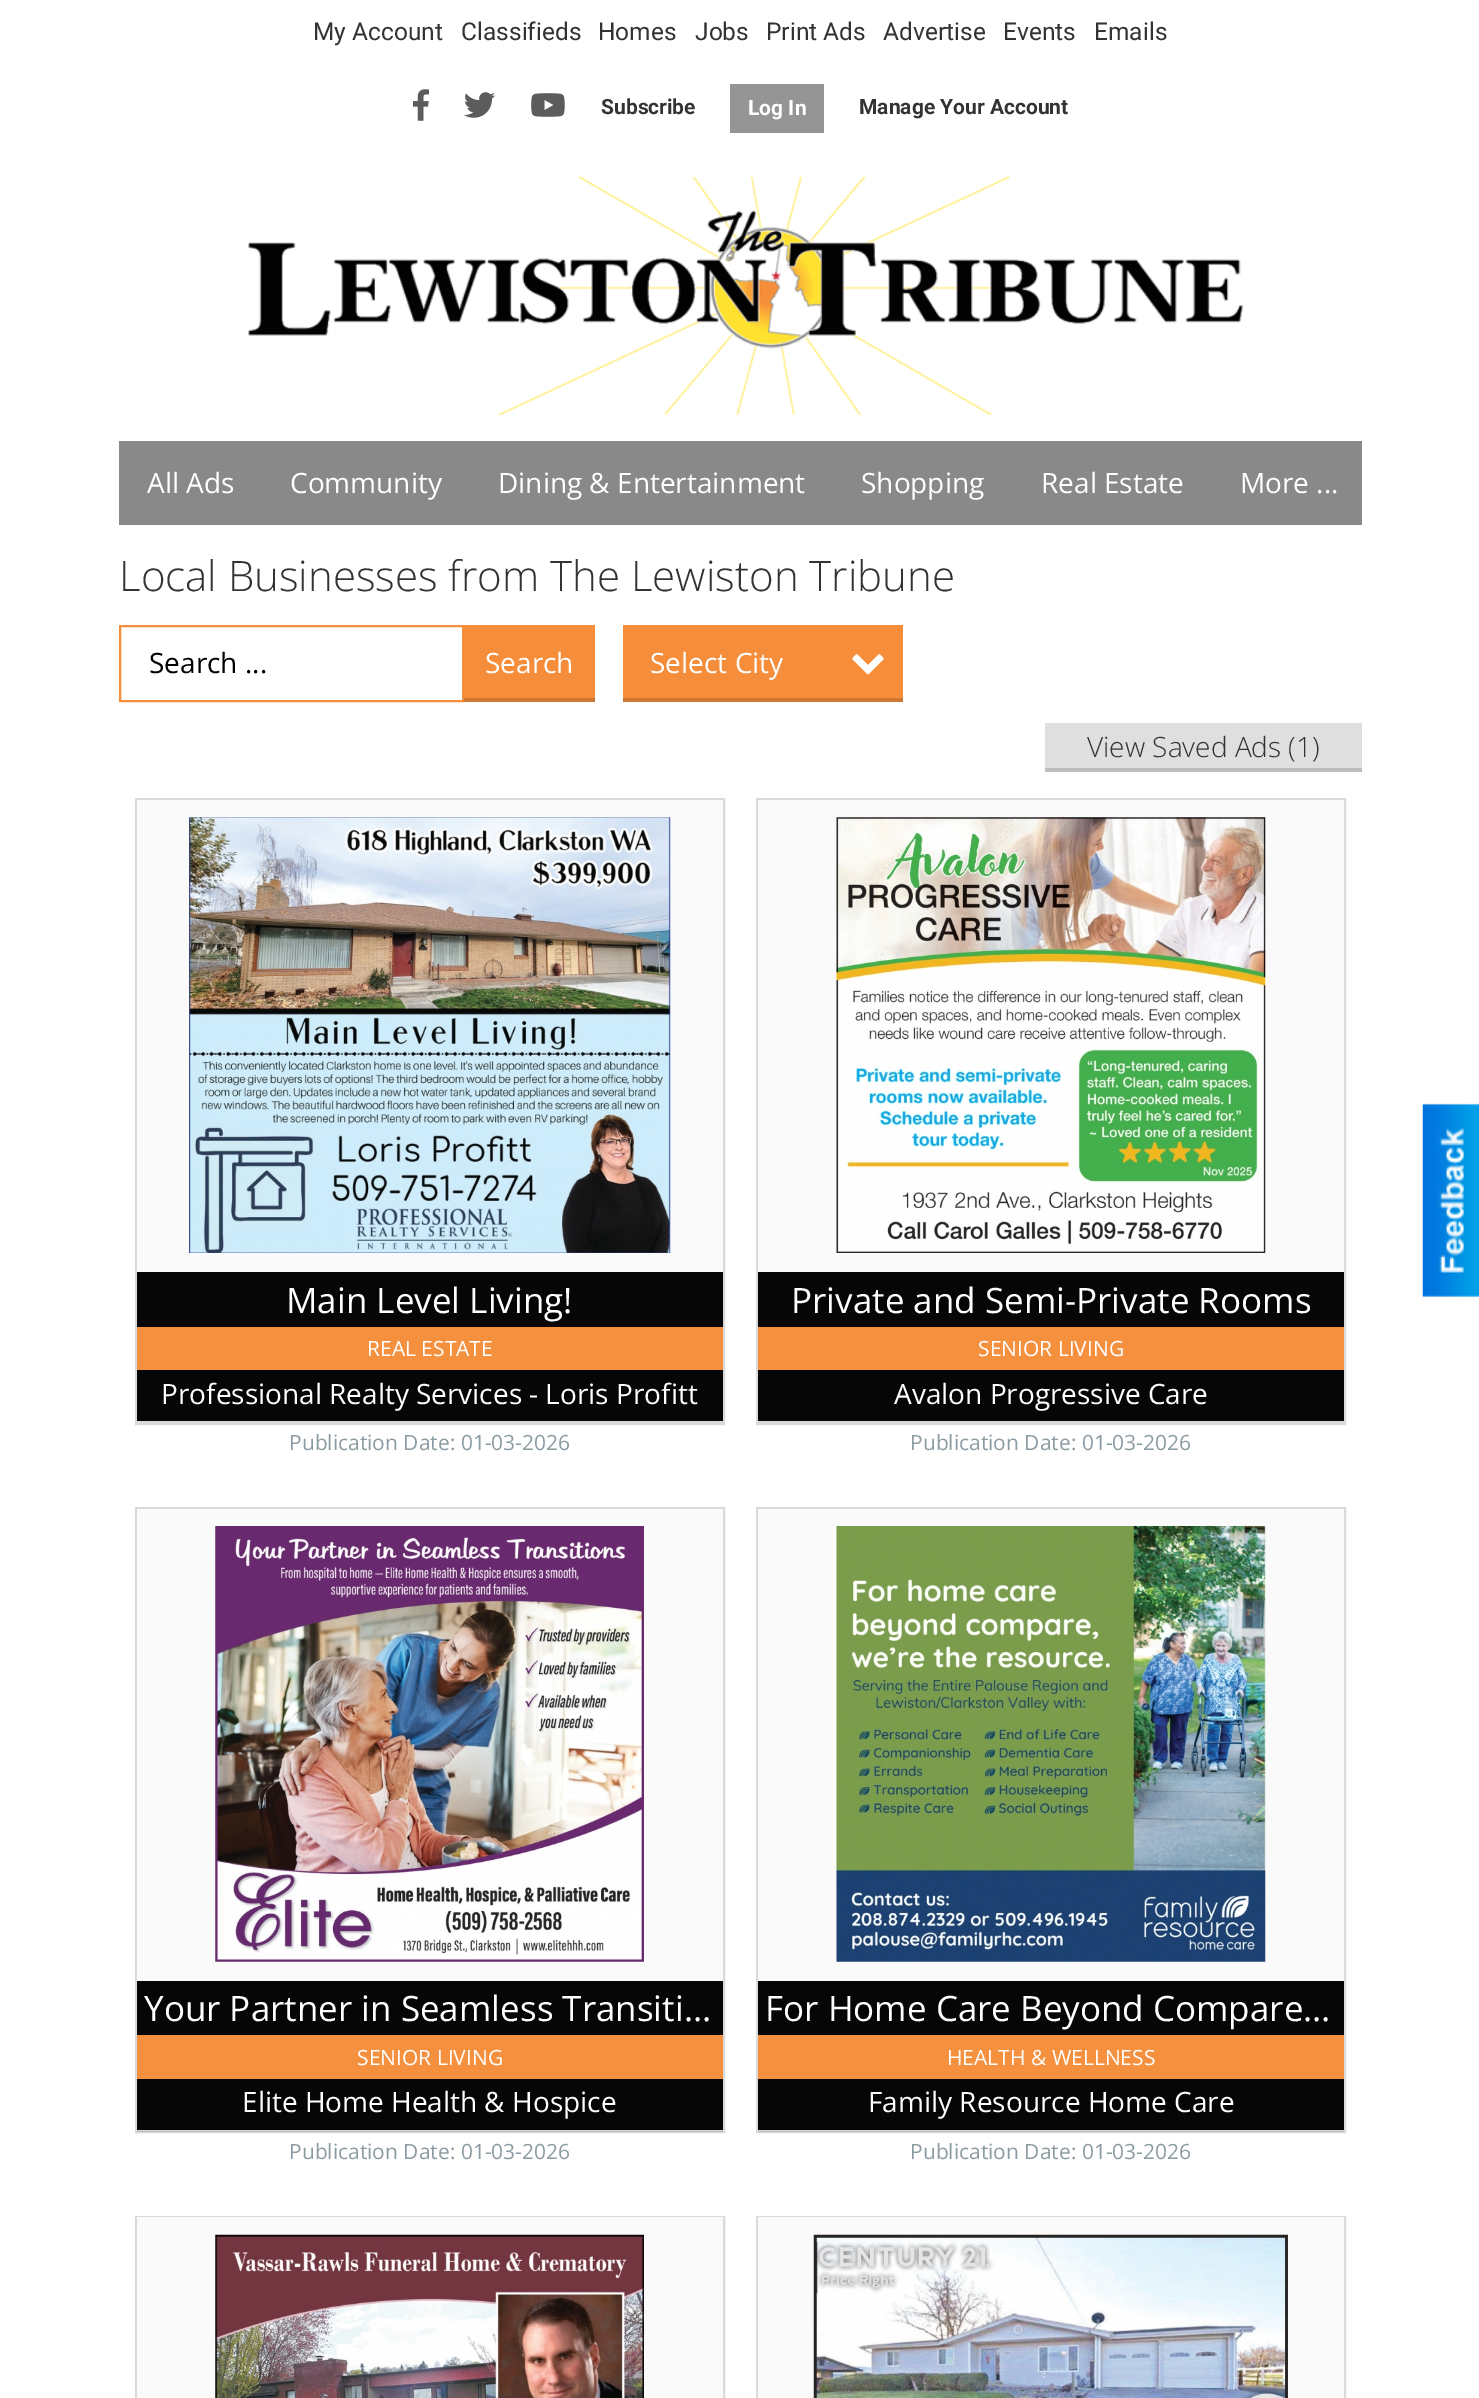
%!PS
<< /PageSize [1479 2398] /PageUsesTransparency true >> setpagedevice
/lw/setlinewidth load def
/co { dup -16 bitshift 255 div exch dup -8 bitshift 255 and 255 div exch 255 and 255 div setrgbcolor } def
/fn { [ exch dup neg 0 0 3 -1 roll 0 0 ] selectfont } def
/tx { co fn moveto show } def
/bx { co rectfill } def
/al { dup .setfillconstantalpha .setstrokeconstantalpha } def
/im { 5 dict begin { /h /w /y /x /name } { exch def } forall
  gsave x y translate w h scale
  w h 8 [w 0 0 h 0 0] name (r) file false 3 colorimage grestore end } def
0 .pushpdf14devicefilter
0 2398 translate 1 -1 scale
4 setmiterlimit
0 0 1479 2398 16#FFFFFF bx
(media/1.raw) 413 89 16 32 im
(media/2.raw) 464 92 31 26 im
(media/3.raw) 531 93 34 24 im
730 84 94 49 16#959595 bx
(media/4.raw) 248 176 996 239 im
119 441 1243 84 16#898989 bx
16#F58D3A co
2 lw
120 626 343 75 rectstroke
464 625 131 73 16#F58D3A bx
464 698 131 4 16#D07831 bx
623 625 280 73 16#F58D3A bx
623 698 280 4 16#D07831 bx
(media/5.raw) 852 654 32 21 im
1045 723 317 45 16#DFDFDF bx
1045 768 317 4 16#BEBEBE bx
16#DADADA co
136 799 588 625 rectstroke
137 1421 586 2 16#DADADA bx
137 800 586 472 16#FAFAFA bx
(media/6.raw) 189 817 482 436 im
137 1272 586 149 16#060606 bx
137 1327 586 43 16#F5903F bx
16#DADADA co
757 799 588 625 rectstroke
758 1421 586 2 16#DADADA bx
758 800 586 472 16#FAFAFA bx
(media/7.raw) 836 817 430 436 im
758 1272 586 149 16#060606 bx
758 1327 586 43 16#F5903F bx
16#DADADA co
136 1508 588 624 rectstroke
0.15 al
137 2130 586 2 16#060606 bx
1 al
137 1509 586 472 16#FAFAFA bx
(media/8.raw) 215 1526 429 436 im
137 1981 586 149 16#060606 bx
137 2035 586 44 16#F5903F bx
16#DADADA co
757 1508 588 624 rectstroke
0.15 al
758 2130 586 2 16#060606 bx
1 al
758 1509 586 472 16#FAFAFA bx
(media/9.raw) 836 1526 430 436 im
758 1981 586 149 16#060606 bx
758 2035 586 44 16#F5903F bx
16#DADADA co
136 2217 588 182 rectstroke
137 2217 586 181 16#FAFAFA bx
(media/10.raw) 215 2234 429 164 im
16#DADADA co
757 2217 588 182 rectstroke
758 2217 586 181 16#FAFAFA bx
(media/11.raw) 813 2234 475 164 im
(media/12.raw) 1422 1103 57 194 im
(My Account) 313 40 /Roboto-Regular 24.5 16#333333 tx
(Classifieds) 461 40 /Roboto-Regular 24.5 16#333333 tx
(Homes) 598 40 /Roboto-Regular 24.5 16#333333 tx
(Jobs) 695 40 /Roboto-Regular 24.5 16#333333 tx
(Print Ads) 766 40 /Roboto-Regular 24.5 16#333333 tx
(Advertise) 883 40 /Roboto-Regular 24.5 16#333333 tx
(Events) 1003 40 /Roboto-Regular 24.5 16#333333 tx
(Emails) 1094 40 /Roboto-Regular 24.5 16#333333 tx
(Subscribe) 601 114 /Roboto-Bold 21 16#333333 tx
(Log In) 748 115 /Roboto-Bold 21 16#FFFFFF tx
(Manage Your Account) 859 114 /Roboto-Bold 21 16#333333 tx
(All Ads) 147 493 /OpenSans-Regular 28 16#FFFFFF tx
(Community) 290 493 /OpenSans-Regular 28 16#FFFFFF tx
(Dining & Entertainment) 498 493 /OpenSans-Regular 28 16#FFFFFF tx
(Shopping) 861 493 /OpenSans-Regular 28 16#FFFFFF tx
(Real Estate) 1041 493 /OpenSans-Regular 28 16#FFFFFF tx
(More ...) 1240 493 /OpenSans-Regular 28 16#FFFFFF tx
(Local Businesses from The Lewiston Tribune) 119 591 /OpenSans-Light 42 16#333333 tx
(Search ...) 149 673 /OpenSans-Regular 28 16#000000 tx
(Search) 485 673 /OpenSans-Regular 28 16#FFFFFF tx
(Select City) 650 673 /OpenSans-Regular 28 16#FFFFFF tx
(View Saved Ads \(1\)) 1087 757 /OpenSans-Light 28 16#333333 tx
(Main Level Living!) 286 1313 /OpenSans-Regular 35 16#FFFFFF tx
(REAL ESTATE) 367 1356 /OpenSans-Regular 21 16#FFFFFF tx
(Professional Realty Services - Loris Profitt) 161 1404 /OpenSans-Regular 28 16#FFFFFF tx
(Publication Date: 01-03-2026) 289 1450 /OpenSans-Regular 21 16#8B9BA2 tx
(Private and Semi-Private Rooms) 791 1313 /OpenSans-Regular 35 16#FFFFFF tx
(SENIOR LIVING) 978 1356 /OpenSans-Regular 21 16#FFFFFF tx
(Avalon Progressive Care) 894 1404 /OpenSans-Regular 28 16#FFFFFF tx
(Publication Date: 01-03-2026) 910 1450 /OpenSans-Regular 21 16#8B9BA2 tx
(Your Partner in Seamless Transiti…) 144 2021 /OpenSans-Regular 35 16#FFFFFF tx
(SENIOR LIVING) 357 2065 /OpenSans-Regular 21 16#FFFFFF tx
(Elite Home Health & Hospice) 242 2112 /OpenSans-Regular 28 16#FFFFFF tx
(Publication Date: 01-03-2026) 289 2159 /OpenSans-Regular 21 16#8B9BA2 tx
(For Home Care Beyond Compare…) 765 2021 /OpenSans-Regular 35 16#FFFFFF tx
(HEALTH & WELLNESS) 947 2065 /OpenSans-Regular 21 16#FFFFFF tx
(Family Resource Home Care) 868 2112 /OpenSans-Regular 28 16#FFFFFF tx
(Publication Date: 01-03-2026) 910 2159 /OpenSans-Regular 21 16#8B9BA2 tx
.poppdf14devicefilter showpage
